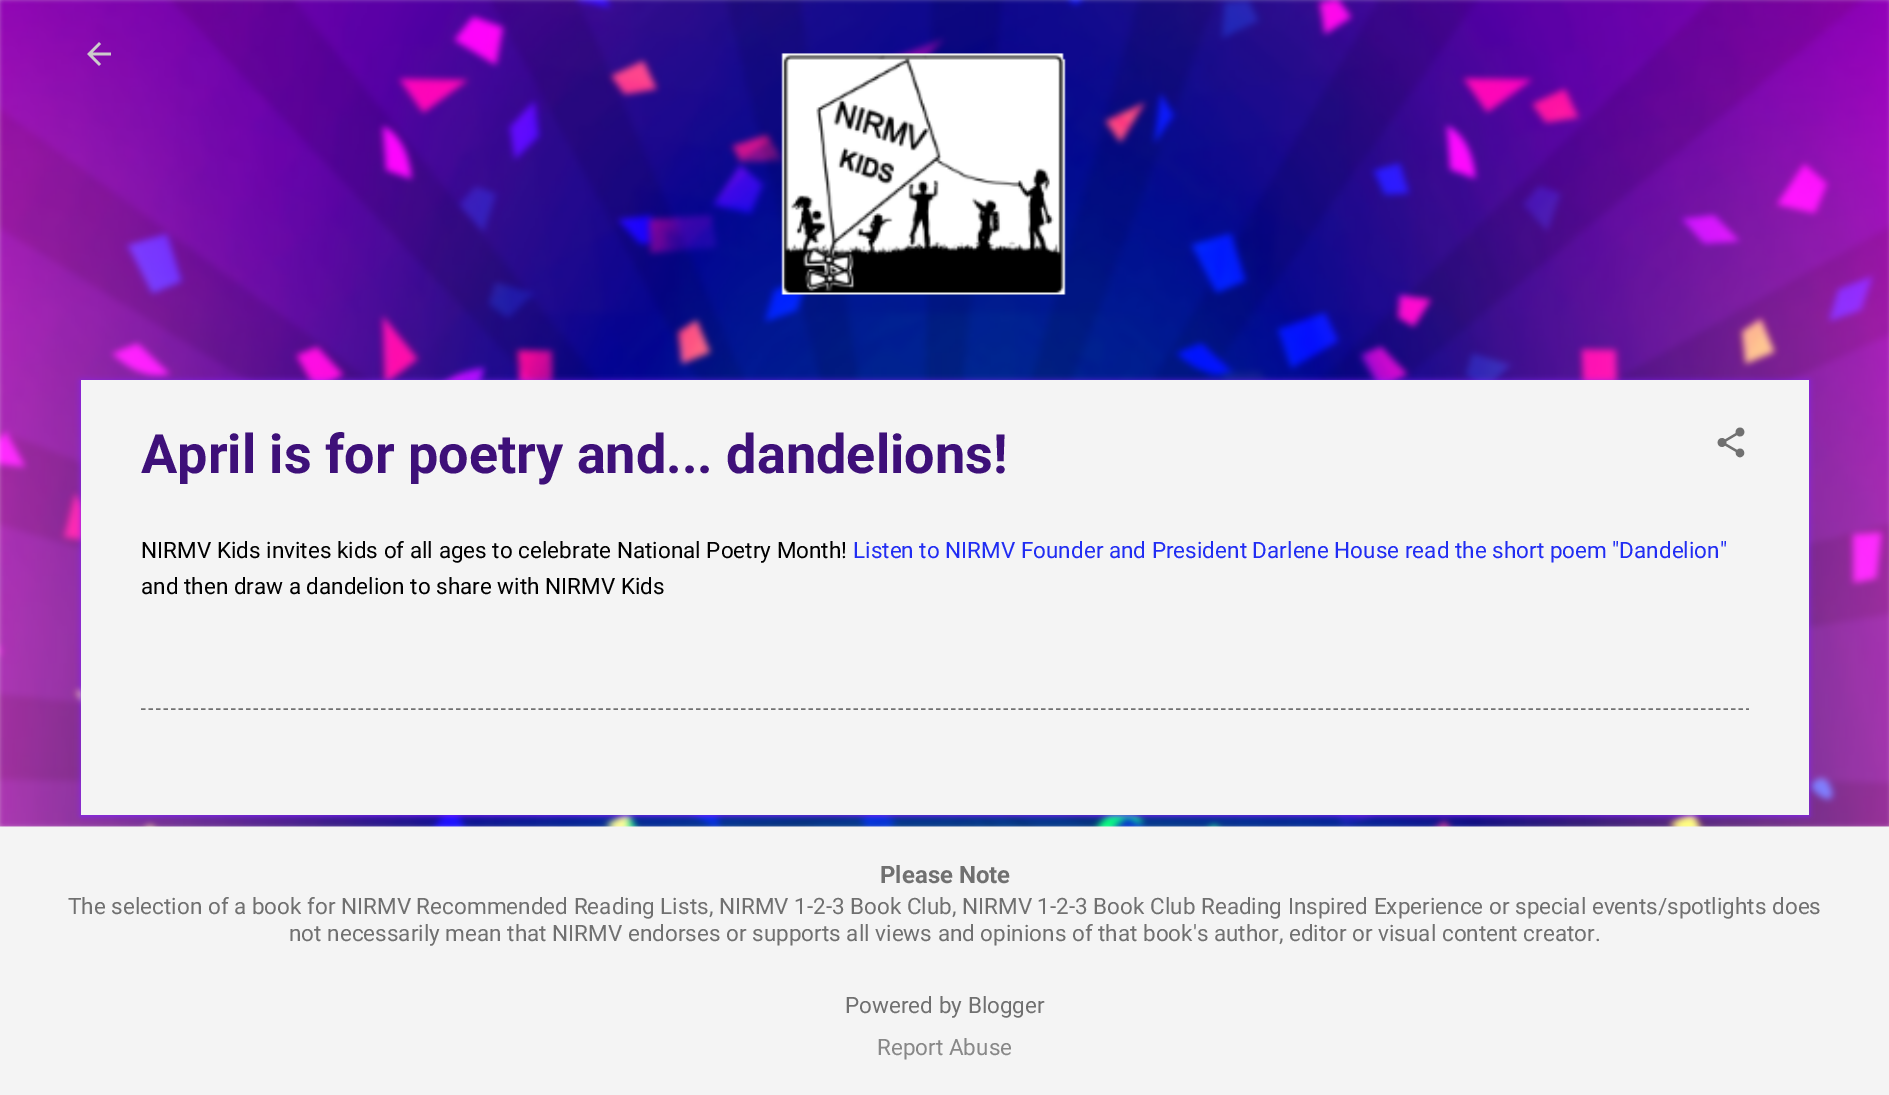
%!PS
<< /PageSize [1889 1095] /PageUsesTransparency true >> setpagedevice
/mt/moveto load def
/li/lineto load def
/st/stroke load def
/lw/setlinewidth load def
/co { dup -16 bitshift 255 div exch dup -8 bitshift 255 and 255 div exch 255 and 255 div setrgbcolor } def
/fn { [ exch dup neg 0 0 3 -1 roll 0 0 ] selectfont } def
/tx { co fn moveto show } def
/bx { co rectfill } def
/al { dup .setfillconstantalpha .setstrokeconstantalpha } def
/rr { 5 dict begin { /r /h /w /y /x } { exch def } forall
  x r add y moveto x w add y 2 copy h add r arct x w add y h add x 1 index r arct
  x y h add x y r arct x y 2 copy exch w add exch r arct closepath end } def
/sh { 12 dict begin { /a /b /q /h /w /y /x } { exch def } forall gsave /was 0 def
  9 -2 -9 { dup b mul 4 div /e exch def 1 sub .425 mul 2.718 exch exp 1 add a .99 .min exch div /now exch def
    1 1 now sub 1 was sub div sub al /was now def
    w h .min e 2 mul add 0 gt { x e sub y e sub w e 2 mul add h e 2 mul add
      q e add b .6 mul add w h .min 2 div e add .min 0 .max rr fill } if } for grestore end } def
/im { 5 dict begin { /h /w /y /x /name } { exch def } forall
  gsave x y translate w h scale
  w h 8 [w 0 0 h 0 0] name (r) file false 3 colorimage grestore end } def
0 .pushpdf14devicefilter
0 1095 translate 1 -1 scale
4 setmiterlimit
0 0 1889 1095 16#F4F4F4 bx
(media/1.raw) 0 0 1889 827 im
(media/2.raw) 87 42 24 24 im
(media/3.raw) 781 53 285 242 im
16#8322FF co
81 381 1728 435 0 3 1 sh
81 380 1728 435 16#F4F4F4 bx
(media/4.raw) 1717 427 28 31 im
16#707070 co
1.5 lw
[4.5 3] 0 setdash
141 709 mt 1749 709 li st
(April is for poetry and... dandelions!) 141 473 /Roboto-Bold 54 16#3E1079 tx
(NIRMV Kids invites kids of all ages to celebrate National Poetry Month!) 141 558 /Roboto-Regular 22.5 16#000000 tx
(Listen to NIRMV Founder and President Darlene House read the short poem "Dandelion") 853 558 /Roboto-Regular 22.5 16#212DF3 tx
(and then draw a dandelion to share with NIRMV Kids) 141 594 /Roboto-Regular 22.5 16#000000 tx
(Please Note) 880 883 /Roboto-Bold 24 16#707070 tx
(The selection of a book for NIRMV Recommended Reading Lists, NIRMV 1-2-3 Book Club, NIRMV 1-2-3 Book Club Reading Inspired Experience or special events/spotlights does) 68 914 /Roboto-Regular 22.5 16#707070 tx
(not necessarily mean that NIRMV endorses or supports all views and opinions of that book's author, editor or visual content creator.) 289 941 /Roboto-Regular 22.5 16#707070 tx
(Powered by Blogger) 845 1013 /Roboto-Regular 22.5 16#707070 tx
(Report Abuse) 877 1055 /Roboto-Regular 22.5 16#888888 tx
.poppdf14devicefilter showpage
